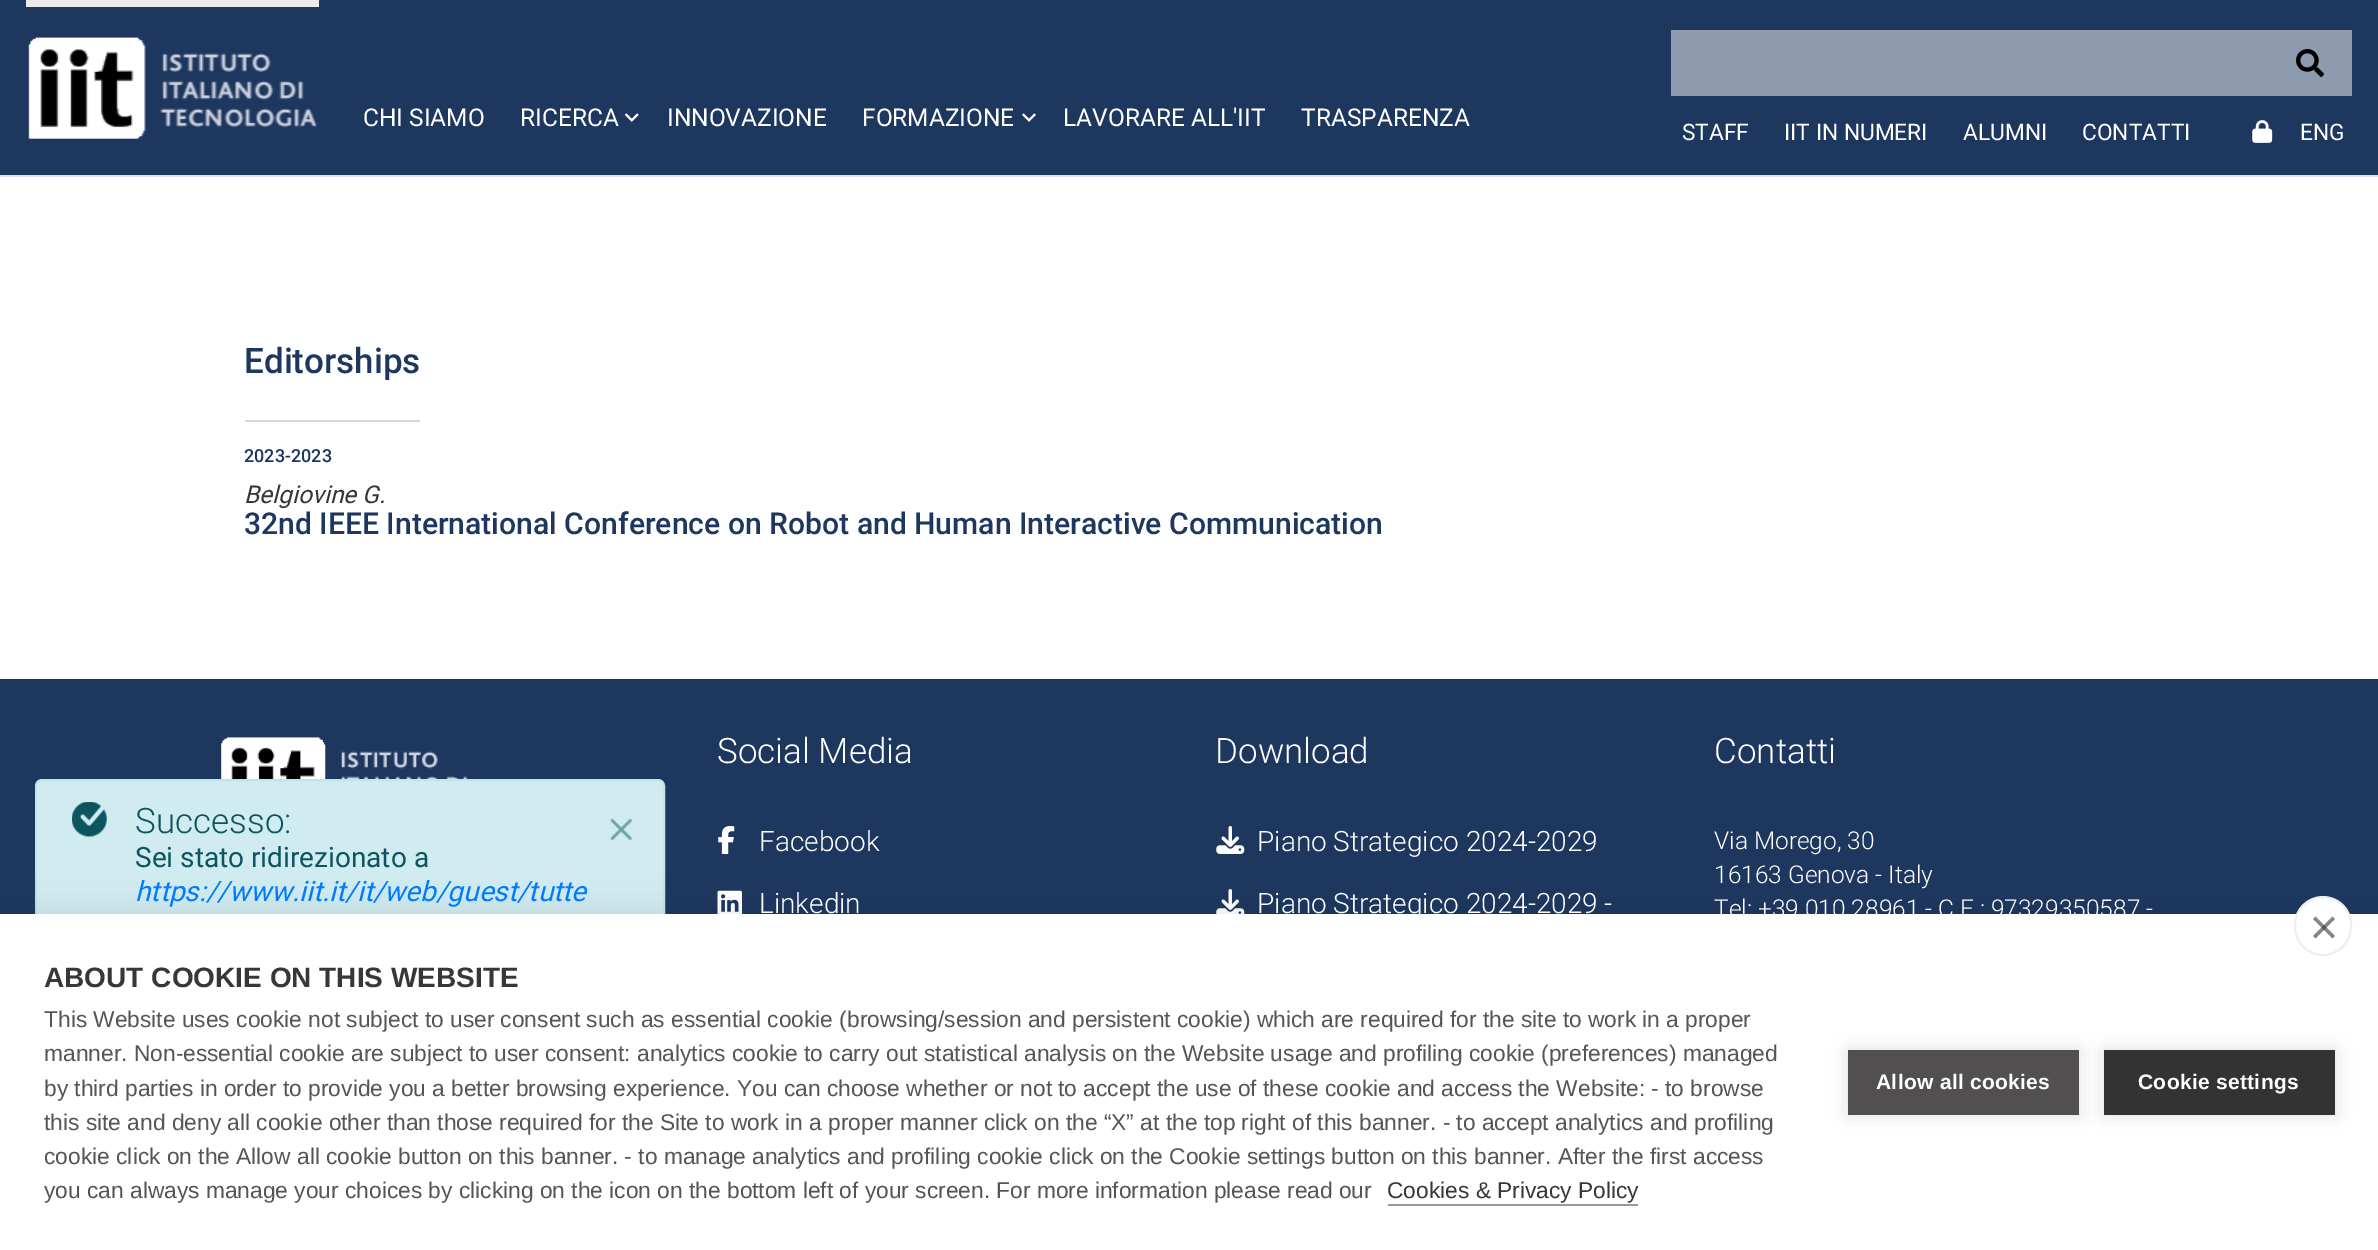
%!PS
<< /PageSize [2378 1250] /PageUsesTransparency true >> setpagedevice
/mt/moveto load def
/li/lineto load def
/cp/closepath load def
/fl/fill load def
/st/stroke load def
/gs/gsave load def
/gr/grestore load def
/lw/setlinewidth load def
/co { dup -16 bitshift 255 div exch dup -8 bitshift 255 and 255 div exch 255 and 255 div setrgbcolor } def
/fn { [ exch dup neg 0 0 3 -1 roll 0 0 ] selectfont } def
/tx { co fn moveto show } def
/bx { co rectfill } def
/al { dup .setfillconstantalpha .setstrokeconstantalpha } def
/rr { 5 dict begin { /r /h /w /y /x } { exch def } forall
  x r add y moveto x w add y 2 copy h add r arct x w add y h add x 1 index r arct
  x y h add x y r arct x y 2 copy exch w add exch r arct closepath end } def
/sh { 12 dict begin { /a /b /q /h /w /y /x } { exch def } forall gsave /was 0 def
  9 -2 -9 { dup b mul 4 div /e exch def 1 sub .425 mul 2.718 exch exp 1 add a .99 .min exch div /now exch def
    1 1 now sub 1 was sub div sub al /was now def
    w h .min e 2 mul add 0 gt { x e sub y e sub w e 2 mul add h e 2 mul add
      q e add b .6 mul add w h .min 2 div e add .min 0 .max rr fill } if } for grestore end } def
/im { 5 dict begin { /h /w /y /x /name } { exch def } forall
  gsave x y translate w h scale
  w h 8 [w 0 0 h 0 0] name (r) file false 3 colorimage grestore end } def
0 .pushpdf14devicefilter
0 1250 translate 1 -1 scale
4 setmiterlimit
0 0 2378 1250 16#FFFFFF bx
0 0 2378 175 16#1D375F bx
0 175 2378 2 16#DEE2EF bx
26 0 293 7 16#EBEBEB bx
(media/1.raw) 28 37 289 102 im
(media/2.raw) 624 113 15 9 im
(media/3.raw) 1022 113 14 9 im
1671 30 681 66 16#8E9BAF bx
(media/4.raw) 2296 49 28 28 im
(media/5.raw) 2252 120 21 23 im
245 420 175 2 16#D2D7DF bx
0 679 2378 235 16#1D375F bx
16#D1ECF1 co
36 780 628 407 6 rr gs fl gr
16#BEE5EB co
2 lw
st
(media/6.raw) 72 802 35 35 im
(media/7.raw) 610 818 22 23 im
(media/8.raw) 221 737 247 42 im
(media/9.raw) 718 826 17 28 im
(media/10.raw) 717 890 25 24 im
(media/11.raw) 1216 826 29 28 im
(media/12.raw) 1216 889 29 25 im
16#000000 co
0 914 2378 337 0 17.5 .1 sh
0 914 2378 336 16#FFFFFF bx
2295 897 56 58 28 rr gs fl gr
16#EEEEEE co
st
16#858585 co
2313 936 mt 2332.5 916.5 li 2335 919 li 2315.5 938.5 li cp fl
0.6 al
16#333333 co
2315.5 916.5 mt 2335 936 li 2332.5 938.5 li 2313 919 li cp fl
1 al
1388 1204 250 2 16#999999 bx
16#000000 co
1848 1050 231 65 0 9 .12 sh
1848 1050 231 65 16#524F50 bx
16#000000 co
2104 1050 231 65 0 9 .12 sh
2104 1050 231 65 16#333333 bx
(CHI SIAMO) 363 126 /Roboto-Regular 24.5 16#FFFFFF tx
(RICERCA) 520 126 /Roboto-Regular 24.5 16#FFFFFF tx
(INNOVAZIONE) 667 126 /Roboto-Regular 24.5 16#FFFFFF tx
(FORMAZIONE) 862 126 /Roboto-Regular 24.5 16#FFFFFF tx
(LAVORARE ALL'IIT) 1063 126 /Roboto-Regular 24.5 16#FFFFFF tx
(TRASPARENZA) 1301 126 /Roboto-Regular 24.5 16#FFFFFF tx
(STAFF) 1682 140 /Roboto-Regular 22.75 16#FFFFFF tx
(IIT IN NUMERI) 1784 140 /Roboto-Regular 22.75 16#FFFFFF tx
(ALUMNI) 1963 140 /Roboto-Regular 22.75 16#FFFFFF tx
(CONTATTI) 2082 140 /Roboto-Regular 22.75 16#FFFFFF tx
(ENG) 2300 140 /Roboto-Regular 22.75 16#FFFFFF tx
(Editorships) 244 373 /Roboto-Medium 35 16#1D375F tx
(2023-2023) 244 462 /Roboto-Medium 18 16#1D375F tx
(Belgiovine G.) 244 503 /Roboto-Italic 24.5 16#383737 tx
(32nd IEEE International Conference on Robot and Human Interactive Communication) 244 534 /Roboto-Medium 30.1 16#1D375F tx
(Successo:) 135 833 /Roboto-Light 35 16#0C5460 tx
(Sei stato ridirezionato a) 135 867 /Roboto-Regular 28 16#0C5460 tx
(https://www.iit.it/it/web/guest/tutte) 135 901 /Roboto-Italic 28 16#007BFF tx
(Social Media) 717 763 /Roboto-Light 35 16#FFFFFF tx
(Facebook) 759 851 /Roboto-Light 28 16#FFFFFF tx
(Linkedin) 759 913 /Roboto-Light 28 16#FFFFFF tx
(Download) 1215 763 /Roboto-Light 35 16#FFFFFF tx
(Piano Strategico 2024-2029) 1257 851 /Roboto-Light 28 16#FFFFFF tx
(Piano Strategico 2024-2029 -) 1257 913 /Roboto-Light 28 16#FFFFFF tx
(Contatti) 1714 763 /Roboto-Light 35 16#FFFFFF tx
(Via Morego, 30) 1714 849 /Roboto-Light 24.5 16#FFFFFF tx
(16163 Genova - Italy) 1714 883 /Roboto-Light 24.5 16#FFFFFF tx
(Tel: +39 010 28961 - C.F.: 97329350587 -) 1714 917 /Roboto-Light 24.5 16#FFFFFF tx
(ABOUT COOKIE ON THIS WEBSITE) 44 987 /LiberationSans-Bold 28 16#383737 tx
(This Website uses cookie not subject to user consent such as essential cookie \(browsing/session and persistent cookie\) which are required for the site to work in a proper) 44 1027 /LiberationSans-Regular 22.75 16#555555 tx
(manner. Non-essential cookie are subject to user consent: analytics cookie to carry out statistical analysis on the Website usage and profiling cookie \(preferences\) managed) 44 1061 /LiberationSans-Regular 22.75 16#555555 tx
(by third parties in order to provide you a better browsing experience. You can choose whether or not to accept the use of these cookie and access the Website: - to browse) 44 1096 /LiberationSans-Regular 22.75 16#555555 tx
(this site and deny all cookie other than those required for the Site to work in a proper manner click on the “X” at the top right of this banner. - to accept analytics and profiling) 44 1130 /LiberationSans-Regular 22.75 16#555555 tx
(cookie click on the Allow all cookie button on this banner. - to manage analytics and profiling cookie click on the Cookie settings button on this banner. After the first access) 44 1164 /LiberationSans-Regular 22.75 16#555555 tx
(you can always manage your choices by clicking on the icon on the bottom left of your screen. For more information please read our) 44 1198 /LiberationSans-Regular 22.75 16#555555 tx
(Cookies & Privacy Policy) 1387 1198 /LiberationSans-Regular 22.75 16#383737 tx
/LiberationSans-Bold 21 fn
16#FFFFFF co
1876 1089 mt .3 0 (Allow all cookies) ashow
2138 1089 mt .3 0 (Cookie settings) ashow
.poppdf14devicefilter showpage
